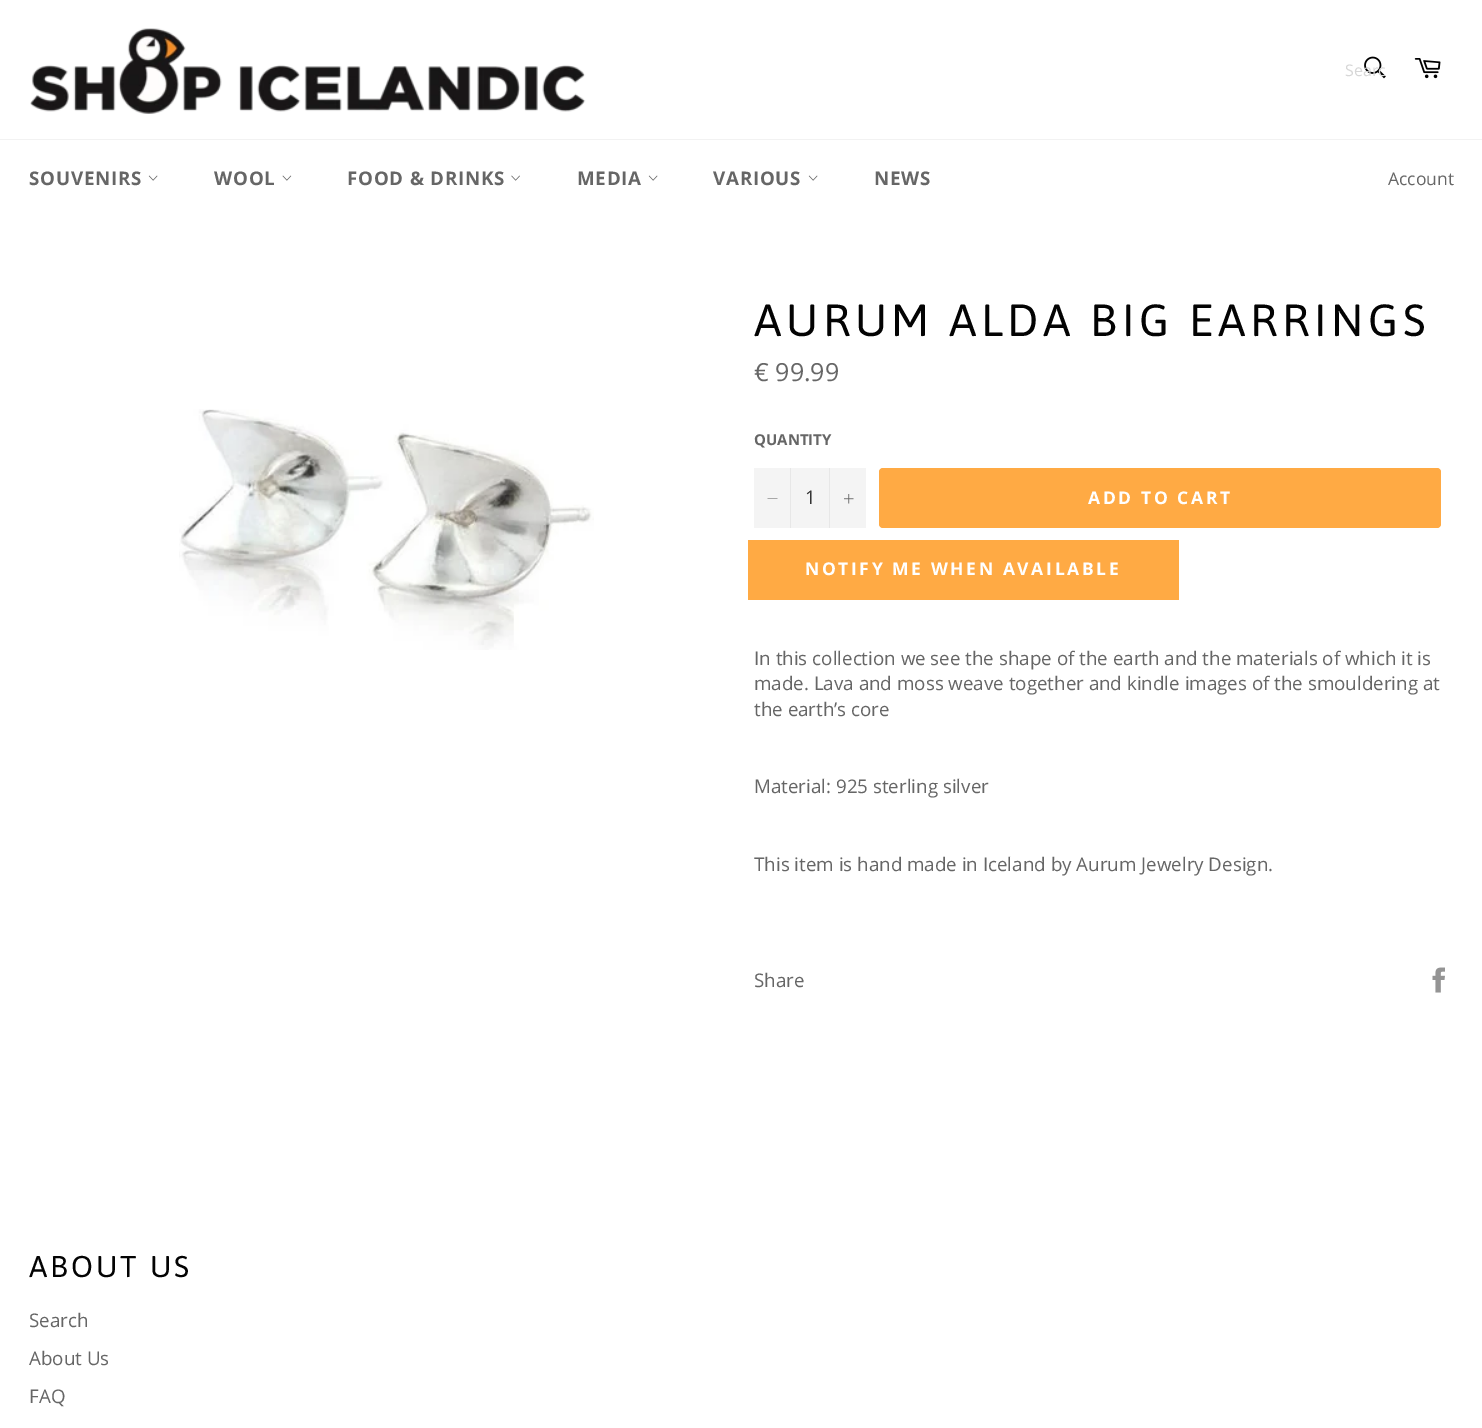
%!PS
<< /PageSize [1482 1428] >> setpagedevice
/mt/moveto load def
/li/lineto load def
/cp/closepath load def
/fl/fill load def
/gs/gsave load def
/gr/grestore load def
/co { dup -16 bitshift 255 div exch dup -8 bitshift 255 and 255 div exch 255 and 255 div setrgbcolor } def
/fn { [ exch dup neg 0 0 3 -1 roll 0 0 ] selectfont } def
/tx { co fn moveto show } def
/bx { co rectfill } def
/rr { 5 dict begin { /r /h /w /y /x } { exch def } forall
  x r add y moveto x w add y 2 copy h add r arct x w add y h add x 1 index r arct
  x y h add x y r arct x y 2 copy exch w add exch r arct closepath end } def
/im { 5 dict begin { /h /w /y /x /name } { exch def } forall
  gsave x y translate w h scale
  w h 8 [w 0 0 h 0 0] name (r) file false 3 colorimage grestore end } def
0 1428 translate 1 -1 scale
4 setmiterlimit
0 0 1482 1428 16#FFFFFF bx
(media/1.raw) 30 28 556 86 im
(media/2.raw) 1364 56 22 23 im
(media/3.raw) 1414 58 27 21 im
0 139 1482 1 16#F2F2F2 bx
(media/4.raw) 148 175 10 6 im
(media/5.raw) 282 175 10 6 im
(media/6.raw) 511 175 9 6 im
(media/4.raw) 648 175 10 6 im
(media/4.raw) 808 175 10 6 im
(media/7.raw) 179 409 415 241 im
754 468 112 60 16#F4F4F4 bx
790 468 1 60 16#E7E7E7 bx
16#666666 co
777.5 498.5 mt 777.5 499 li 767.5 499 li 767.5 498.5 li cp eofill
829 468 1 60 16#E7E7E7 bx
(media/8.raw) 844 494 10 10 im
16#FFAA44 co
879 468 562 60 4 rr fl
748 540 431 60 16#FFAA44 bx
(media/9.raw) 1432 967 13 26 im
gs
1345 59 40 22 rectclip
(Searc) 1345 76 /OpenSans-Regular 16 16#D7D7D7 tx
gr
/OpenSans-Bold 18.75 fn
16#666666 co
29 185 mt .75 0 (SOUVENIRS) ashow
214 185 mt .75 0 (WOOL) ashow
347 185 mt .75 0 (FOOD & DRINKS) ashow
577 185 mt .75 0 (MEDIA) ashow
713 185 mt .75 0 (VARIOUS) ashow
874 185 mt .75 0 (NEWS) ashow
(Account) 1388 185 /OpenSans-Regular 17.5 16#666666 tx
/Asap-Regular 45 fn
16#030303 co
754 336 mt 4.5 0 (AURUM ALDA BIG EARRINGS) ashow
(€ 99.99) 754 381 /OpenSans-Regular 25 16#666666 tx
(QUANTITY) 754 445 /OpenSans-Bold 15 16#666666 tx
(1) 805 504 /OpenSans-Regular 18.75 16#333333 tx
/OpenSans-Bold 17.5 fn
16#FFFFFF co
1088 504 mt 2.6 0 (ADD TO CART) ashow
805 575 mt 2.6 0 (NOTIFY ME WHEN AVAILABLE) ashow
(In this collection we see the shape of the earth and the materials of which it is) 754 665 /OpenSans-Regular 18.75 16#666666 tx
(made. Lava and moss weave together and kindle images of the smouldering at) 754 690 /OpenSans-Regular 18.75 16#666666 tx
(the earth’s core) 754 716 /OpenSans-Regular 18.75 16#666666 tx
(Material: 925 sterling silver) 754 793 /OpenSans-Regular 18.75 16#666666 tx
(This item is hand made in Iceland by Aurum Jewelry Design.) 754 871 /OpenSans-Regular 18.75 16#666666 tx
(Share) 754 987 /OpenSans-Regular 18.75 16#666666 tx
/Asap-Regular 30 fn
16#030303 co
29 1277 mt 3 0 (ABOUT US) ashow
(Search) 29 1327 /OpenSans-Regular 18.75 16#666666 tx
(About Us) 29 1365 /OpenSans-Regular 18.75 16#666666 tx
(FAQ) 29 1403 /OpenSans-Regular 18.75 16#666666 tx
showpage
